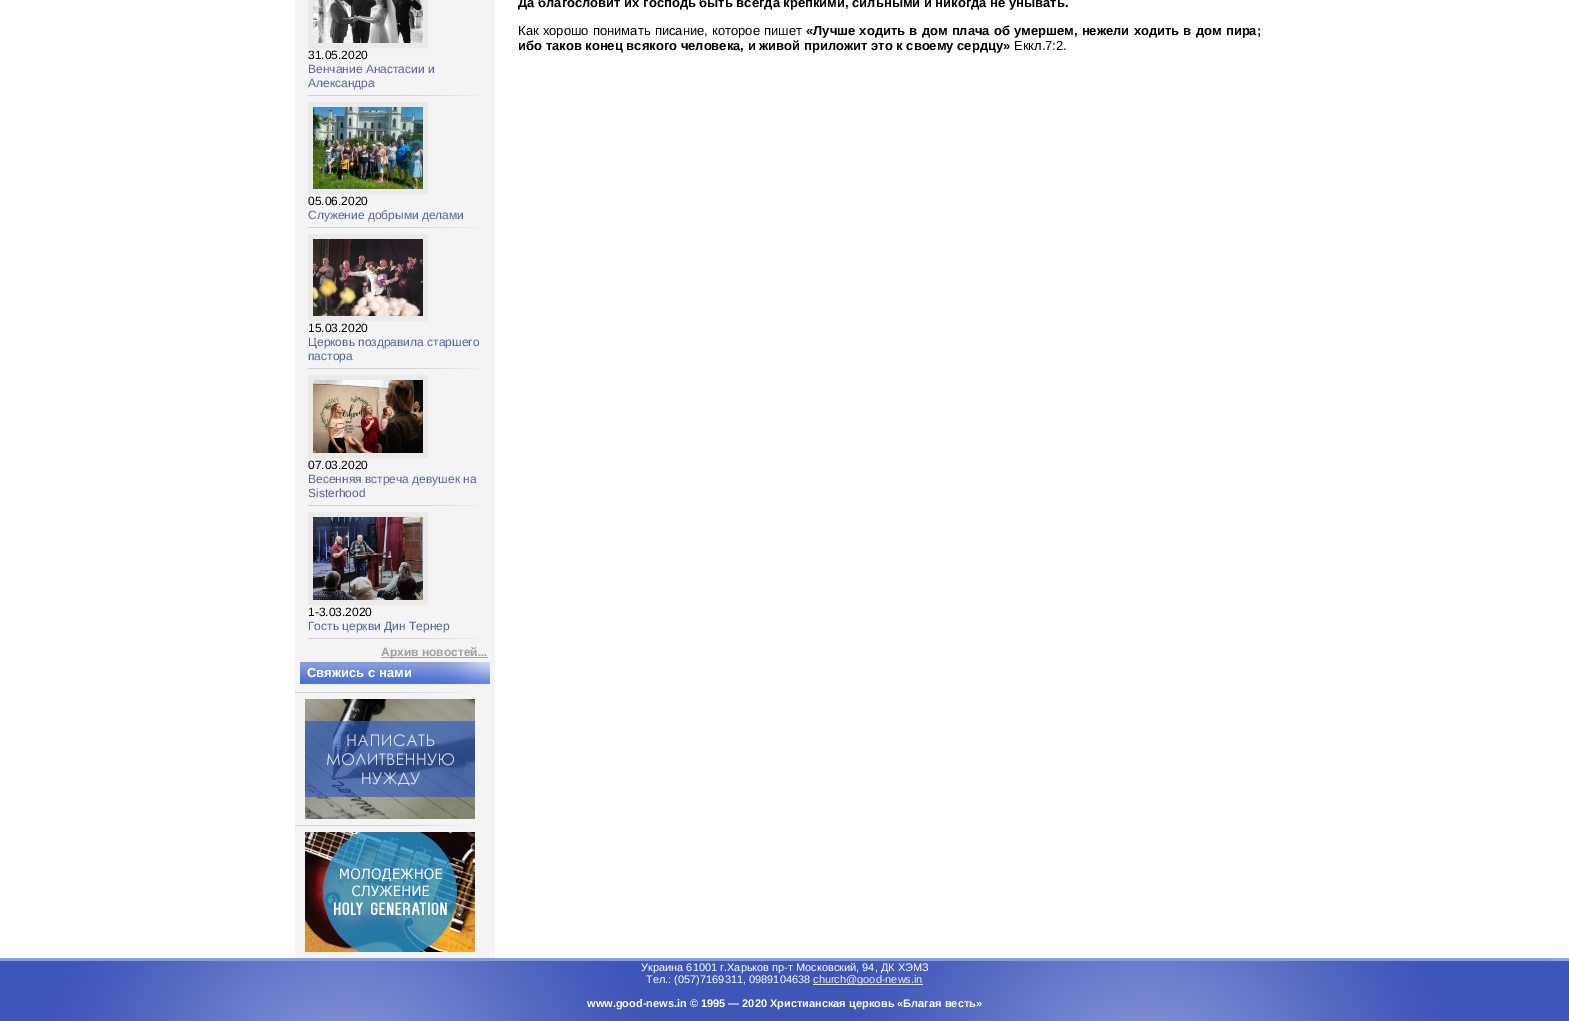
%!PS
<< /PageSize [1569 1021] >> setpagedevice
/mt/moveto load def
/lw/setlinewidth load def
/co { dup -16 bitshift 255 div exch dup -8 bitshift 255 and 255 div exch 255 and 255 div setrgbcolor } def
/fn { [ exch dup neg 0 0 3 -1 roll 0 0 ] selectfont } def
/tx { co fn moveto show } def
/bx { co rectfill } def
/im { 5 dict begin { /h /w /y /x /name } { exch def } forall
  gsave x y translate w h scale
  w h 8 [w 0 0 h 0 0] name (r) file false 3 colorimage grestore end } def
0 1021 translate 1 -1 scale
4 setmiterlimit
0 0 1569 1021 16#FFFFFF bx
295 0 200 958 16#F4F4F4 bx
16#ECEAEA co
5 lw
310.5 -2.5 115 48 rectstroke
(media/1.raw) 313 0 110 43 im
(media/2.raw) 308 95 172 1 im
310.5 104.5 115 87 rectstroke
(media/3.raw) 313 107 110 82 im
(media/2.raw) 308 227 172 1 im
310.5 236.5 115 82 rectstroke
(media/4.raw) 313 239 110 77 im
(media/2.raw) 308 368 172 1 im
310.5 377.5 115 78 rectstroke
(media/5.raw) 313 380 110 73 im
(media/2.raw) 308 505 172 1 im
310.5 514.5 115 88 rectstroke
(media/6.raw) 313 517 110 83 im
(media/2.raw) 308 638 172 1 im
381 657 107 1 16#A1A1A1 bx
(media/7.raw) 300 662 190 22 im
(media/2.raw) 295 692 172 1 im
(media/8.raw) 305 699 170 120 im
(media/2.raw) 295 825 172 1 im
(media/9.raw) 305 832 170 120 im
0 958 1551 3 16#8D9BD9 bx
(media/10.raw) 1551 958 18 3 im
(media/11.raw) 0 961 1569 60 im
813 984 110 1 16#E7EDFF bx
(Да благословит их господь быть всегда крепкими, сильными и никогда не унывать.) 518 7 /LiberationSans-Bold 13 16#000000 tx
/LiberationSans-Regular 13 fn
518 35 mt .6 0 32 (Как хорошо понимать писание, которое пишет) widthshow
/LiberationSans-Bold 13 fn
806 35 mt .6 0 32 («Лучше ходить в дом плача об умершем, нежели ходить в дом пира;) widthshow
(ибо таков конец всякого человека, и живой приложит это к своему сердцу») 518 50 /LiberationSans-Bold 13 16#000000 tx
(Еккл.7:2.) 1014 50 /LiberationSans-Regular 13 16#000000 tx
(31.05.2020) 308 59 /LiberationSans-Regular 12 16#000000 tx
(Венчание Анастасии и) 308 73 /LiberationSans-Regular 12 16#5664A2 tx
(Александра) 308 87 /LiberationSans-Regular 12 16#5664A2 tx
(05.06.2020) 308 205 /LiberationSans-Regular 12 16#000000 tx
(Служение добрыми делами) 308 219 /LiberationSans-Regular 12 16#5664A2 tx
(15.03.2020) 308 332 /LiberationSans-Regular 12 16#000000 tx
(Церковь поздравила старшего) 308 346 /LiberationSans-Regular 12 16#5664A2 tx
(пастора) 308 360 /LiberationSans-Regular 12 16#5664A2 tx
(07.03.2020) 308 469 /LiberationSans-Regular 12 16#000000 tx
(Весенняя встреча девушек на) 308 483 /LiberationSans-Regular 12 16#5664A2 tx
(Sisterhood) 308 497 /LiberationSans-Regular 12 16#5664A2 tx
(1-3.03.2020) 308 616 /LiberationSans-Regular 12 16#000000 tx
(Гость церкви Дин Тернер) 308 630 /LiberationSans-Regular 12 16#5664A2 tx
(Архив новостей...) 381 656 /LiberationSans-Bold 12 16#A1A1A1 tx
(Свяжись с нами) 307 677 /LiberationSans-Bold 13 16#FFFFFF tx
(Украина 61001 г.Харьков пр-т Московский, 94, ДК ХЭМЗ) 641 971 /LiberationSans-Regular 11 16#FFFFFF tx
(Тел.: \(057\)7169311, 0989104638) 646 983 /LiberationSans-Regular 11 16#FFFFFF tx
(church@good-news.in) 813 983 /LiberationSans-Regular 11 16#E7EDFF tx
(www.good-news.in © 1995 — 2020 Христианская церковь «Благая весть») 587 1007 /LiberationSans-Bold 11 16#FFFFFF tx
showpage
